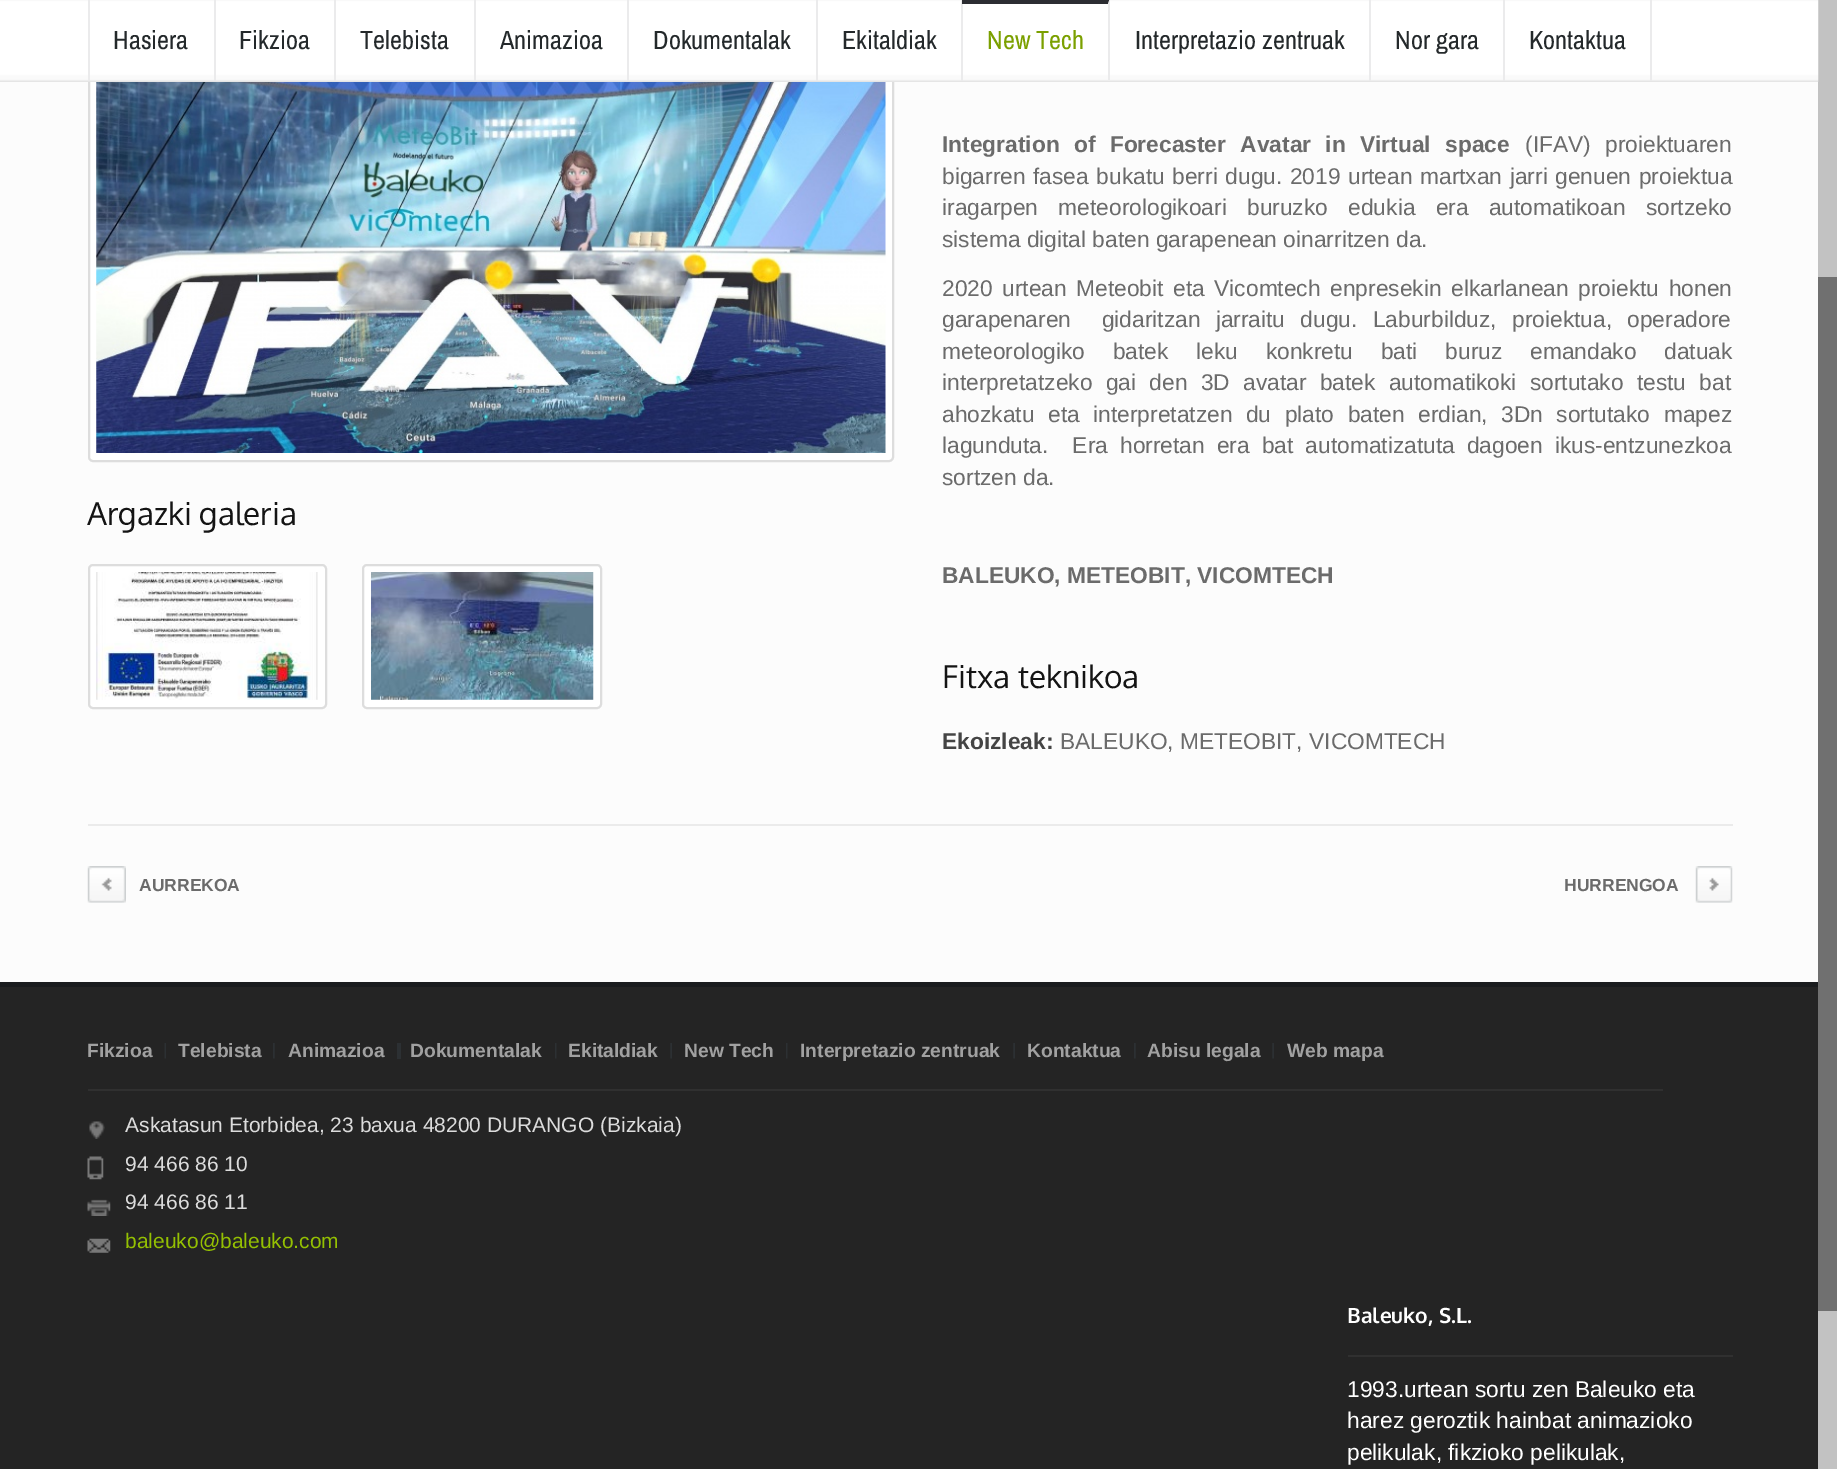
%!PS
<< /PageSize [1837 1469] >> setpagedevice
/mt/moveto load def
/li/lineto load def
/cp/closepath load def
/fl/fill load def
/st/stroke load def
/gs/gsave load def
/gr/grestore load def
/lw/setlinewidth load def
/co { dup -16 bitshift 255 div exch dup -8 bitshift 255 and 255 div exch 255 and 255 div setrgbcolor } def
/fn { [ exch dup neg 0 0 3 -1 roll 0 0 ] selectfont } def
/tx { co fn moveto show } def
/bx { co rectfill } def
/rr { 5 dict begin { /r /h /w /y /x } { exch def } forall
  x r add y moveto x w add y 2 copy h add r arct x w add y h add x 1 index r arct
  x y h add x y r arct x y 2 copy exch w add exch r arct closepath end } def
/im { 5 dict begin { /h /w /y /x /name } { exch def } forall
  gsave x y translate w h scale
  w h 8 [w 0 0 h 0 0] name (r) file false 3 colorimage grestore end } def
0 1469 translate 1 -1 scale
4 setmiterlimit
0 0 1837 1469 16#FCFCFC bx
16#FFFFFF co
89 1 804 460 4 rr gs fl gr
16#DDDDDD co
2 lw
st
1818 0 19 1469 16#C2C2C2 bx
(media/1.raw) 0 0 1819 82 im
214 0 2 81 16#EBEBEC bx
88 0 2 81 16#EBEBEC bx
334 0 2 81 16#EBEBEC bx
474 0 2 81 16#EBEBEC bx
627 0 2 81 16#EBEBEC bx
816 0 2 81 16#EBEBEC bx
961 0 2 81 16#EBEBEC bx
16#2C2D32 co
962 -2 mt 1110 -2 li 1108 4 li 962 4 li cp fl
16#EBEBEC co
1110 -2 mt 1110 80 li 1108 80 li 1108 4 li cp fl
1369 0 2 81 16#EBEBEC bx
1503 0 2 81 16#EBEBEC bx
1650 0 2 81 16#EBEBEC bx
88 824 1645 2 16#EBEBEB bx
(media/2.raw) 96 82 790 371 im
16#FFFFFF co
89 565 237 143 4 rr gs fl gr
16#DDDDDD co
st
(media/3.raw) 96 572 222 128 im
16#FFFFFF co
363 565 238 143 4 rr gs fl gr
16#DDDDDD co
st
(media/4.raw) 371 572 223 128 im
(media/5.raw) 87 866 39 37 im
(media/6.raw) 1695 866 38 37 im
0 982 1818 5 16#1A1C1E bx
0 987 1818 482 16#242424 bx
88 1089 1575 2 16#303030 bx
(media/7.raw) 164 1043 2 16 im
(media/8.raw) 273 1043 2 16 im
397 1043 4 16 16#2C3033 bx
(media/9.raw) 555 1043 2 16 im
(media/10.raw) 670 1043 2 16 im
(media/9.raw) 786 1043 2 16 im
(media/10.raw) 1013 1043 2 16 im
(media/8.raw) 1134 1043 2 16 im
(media/10.raw) 1272 1043 2 16 im
(media/11.raw) 89 1121 16 18 im
(media/12.raw) 87 1156 17 24 im
(media/13.raw) 87 1199 24 17 im
(media/14.raw) 87 1238 24 15 im
1348 1355 385 2 16#303030 bx
1818 277 19 1034 16#707070 bx
(Hasiera) 113 49 /ArchivoNarrow-Regular 26.25 16#24292B tx
(Fikzioa) 239 49 /ArchivoNarrow-Regular 26.25 16#24292B tx
(Telebista) 360 49 /ArchivoNarrow-Regular 26.25 16#24292B tx
(Animazioa) 500 49 /ArchivoNarrow-Regular 26.25 16#24292B tx
(Dokumentalak) 653 49 /ArchivoNarrow-Regular 26.25 16#24292B tx
(Ekitaldiak) 842 49 /ArchivoNarrow-Regular 26.25 16#24292B tx
(New Tech) 987 49 /ArchivoNarrow-Regular 26.25 16#7BA000 tx
(Interpretazio zentruak) 1135 49 /ArchivoNarrow-Regular 26.25 16#24292B tx
(Nor gara) 1395 49 /ArchivoNarrow-Regular 26.25 16#24292B tx
(Kontaktua) 1529 49 /ArchivoNarrow-Regular 26.25 16#24292B tx
(Argazki galeria) 87 525 /Oxygen-Regular 31.5 16#141414 tx
/LiberationSans-Bold 22.75 fn
16#6B6B6B co
942 152 mt 8 0 32 (Integration of Forecaster Avatar in Virtual space) widthshow
/LiberationSans-Regular 22.75 fn
1525 152 mt 8 0 32 (\(IFAV\) proiektuaren) widthshow
942 184 mt 1.25 0 32 (bigarren fasea bukatu berri dugu. 2019 urtean martxan jarri genuen proiektua) widthshow
942 215 mt 14 0 32 (iragarpen meteorologikoari buruzko edukia era automatikoan sortzeko) widthshow
(sistema digital baten garapenean oinarritzen da.) 942 247 /LiberationSans-Regular 22.75 16#6B6B6B tx
942 296 mt 3.25 0 32 (2020 urtean Meteobit eta Vicomtech enpresekin elkarlanean proiektu honen) widthshow
942 327 mt 9 0 32 (garapenaren  gidaritzan jarraitu dugu. Laburbilduz, proiektua, operadore) widthshow
942 359 mt 21.5 0 32 (meteorologiko batek leku konkretu bati buruz emandako datuak) widthshow
942 390 mt 7 0 32 (interpretatzeko gai den 3D avatar batek automatikoki sortutako testu bat) widthshow
942 422 mt 7.25 0 32 (ahozkatu eta interpretatzen du plato baten erdian, 3Dn sortutako mapez) widthshow
942 453 mt 5.75 0 32 (lagunduta.  Era horretan era bat automatizatuta dagoen ikus-entzunezkoa) widthshow
(sortzen da.) 942 485 /LiberationSans-Regular 22.75 16#6B6B6B tx
(BALEUKO, METEOBIT, VICOMTECH) 942 583 /LiberationSans-Bold 22.75 16#6B6B6B tx
(Fitxa teknikoa) 942 688 /Oxygen-Regular 31.5 16#141414 tx
(Ekoizleak:) 942 749 /LiberationSans-Bold 22.75 16#444444 tx
(BALEUKO, METEOBIT, VICOMTECH) 1060 749 /LiberationSans-Regular 22.75 16#6B6B6B tx
(AURREKOA) 139 891 /LiberationSans-Bold 17.5 16#6B6B6B tx
(HURRENGOA) 1564 891 /LiberationSans-Bold 17.5 16#6B6B6B tx
gs
88 1012 1575 77 rectclip
(Fikzioa) 87 1057 /LiberationSans-Bold 19.25 16#A1A1A1 tx
gr
(Telebista) 178 1057 /LiberationSans-Bold 19.25 16#A1A1A1 tx
(Animazioa) 288 1057 /LiberationSans-Bold 19.25 16#A1A1A1 tx
(Dokumentalak) 410 1057 /LiberationSans-Bold 19.25 16#A1A1A1 tx
(Ekitaldiak) 568 1057 /LiberationSans-Bold 19.25 16#A1A1A1 tx
(New Tech) 684 1057 /LiberationSans-Bold 19.25 16#A1A1A1 tx
(Interpretazio zentruak) 800 1057 /LiberationSans-Bold 19.25 16#A1A1A1 tx
(Kontaktua) 1027 1057 /LiberationSans-Bold 19.25 16#A1A1A1 tx
(Abisu legala) 1147 1057 /LiberationSans-Bold 19.25 16#A1A1A1 tx
(Web mapa) 1287 1057 /LiberationSans-Bold 19.25 16#A1A1A1 tx
(Askatasun Etorbidea, 23 baxua 48200 DURANGO \(Bizkaia\)) 125 1132 /LiberationSans-Regular 21 16#DCDCDC tx
(94 466 86 10) 125 1171 /LiberationSans-Regular 21 16#DCDCDC tx
(94 466 86 11) 125 1209 /LiberationSans-Regular 21 16#DCDCDC tx
(baleuko@baleuko.com) 125 1248 /LiberationSans-Regular 21 16#94C002 tx
(Baleuko, S.L.) 1347 1323 /Oxygen-Bold 21 16#FFFFFF tx
(1993.urtean sortu zen Baleuko eta) 1347 1397 /LiberationSans-Regular 22.75 16#FFFFFF tx
(harez geroztik hainbat animazioko) 1347 1428 /LiberationSans-Regular 22.75 16#FFFFFF tx
(pelikulak, fikzioko pelikulak,) 1347 1460 /LiberationSans-Regular 22.75 16#FFFFFF tx
showpage
